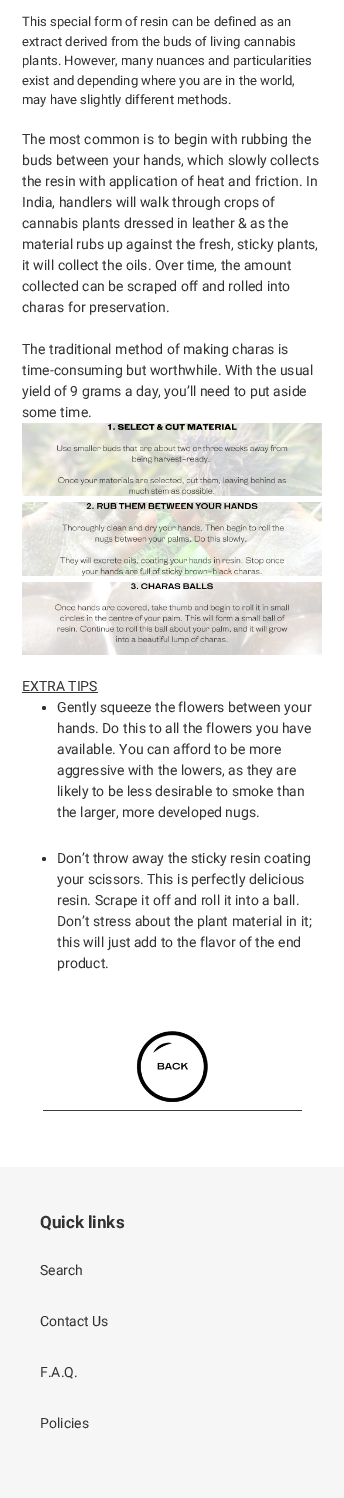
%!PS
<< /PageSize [344 1498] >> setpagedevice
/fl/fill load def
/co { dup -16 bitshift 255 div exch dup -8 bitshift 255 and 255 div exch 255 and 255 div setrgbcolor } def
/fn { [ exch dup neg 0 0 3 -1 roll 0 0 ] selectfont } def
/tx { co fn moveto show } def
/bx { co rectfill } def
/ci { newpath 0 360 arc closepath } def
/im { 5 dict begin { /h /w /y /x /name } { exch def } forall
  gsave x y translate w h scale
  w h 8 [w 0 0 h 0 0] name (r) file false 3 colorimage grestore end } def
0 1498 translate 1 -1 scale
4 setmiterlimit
0 0 344 1498 16#FFFFFF bx
(media/1.raw) 22 423 300 73 im
(media/2.raw) 22 502 300 74 im
(media/3.raw) 22 582 300 73 im
22 692 76 1 16#333232 bx
44 708 2 ci fl
44 859 2 ci fl
(media/4.raw) 136 1031 72 71 im
43 1110 259 1 16#3A3A3A bx
0 1167 344 331 16#F6F6F6 bx
(This special form of resin can be defined as an) 22 26 /Roboto-Regular 13 16#333232 tx
(extract derived from the buds of living cannabis) 22 46 /Roboto-Regular 13 16#333232 tx
(plants. However, many nuances and particularities) 22 65 /Roboto-Regular 13 16#333232 tx
(exist and depending where you are in the world,) 22 85 /Roboto-Regular 13 16#333232 tx
(may have slightly different methods.) 22 104 /Roboto-Regular 13 16#333232 tx
(The most common is to begin with rubbing the) 22 144 /Roboto-Regular 14 16#333232 tx
(buds between your hands, which slowly collects) 22 165 /Roboto-Regular 14 16#333232 tx
(the resin with application of heat and friction. In) 22 186 /Roboto-Regular 14 16#333232 tx
(India, handlers will walk through crops of) 22 207 /Roboto-Regular 14 16#333232 tx
(cannabis plants dressed in leather & as the) 22 228 /Roboto-Regular 14 16#333232 tx
(material rubs up against the fresh, sticky plants,) 22 249 /Roboto-Regular 14 16#333232 tx
(it will collect the oils. Over time, the amount) 22 270 /Roboto-Regular 14 16#333232 tx
(collected can be scraped off and rolled into) 22 291 /Roboto-Regular 14 16#333232 tx
(charas for preservation.) 22 312 /Roboto-Regular 14 16#333232 tx
(The traditional method of making charas is) 22 354 /Roboto-Regular 14 16#333232 tx
(time-consuming but worthwhile. With the usual) 22 375 /Roboto-Regular 14 16#333232 tx
(yield of 9 grams a day, you’ll need to put aside) 22 396 /Roboto-Regular 14 16#333232 tx
(some time.) 22 417 /Roboto-Regular 14 16#333232 tx
(EXTRA TIPS) 22 691 /Roboto-Regular 14 16#333232 tx
(Gently squeeze the flowers between your) 57 712 /Roboto-Regular 14 16#333232 tx
(hands. Do this to all the flowers you have) 57 733 /Roboto-Regular 14 16#333232 tx
(available. You can afford to be more) 57 754 /Roboto-Regular 14 16#333232 tx
(aggressive with the lowers, as they are) 57 775 /Roboto-Regular 14 16#333232 tx
(likely to be less desirable to smoke than) 57 796 /Roboto-Regular 14 16#333232 tx
(the larger, more developed nugs.) 57 817 /Roboto-Regular 14 16#333232 tx
(Don’t throw away the sticky resin coating) 57 863 /Roboto-Regular 14 16#333232 tx
(your scissors. This is perfectly delicious) 57 884 /Roboto-Regular 14 16#333232 tx
(resin. Scrape it off and roll it into a ball.) 57 905 /Roboto-Regular 14 16#333232 tx
(Don’t stress about the plant material in it;) 57 926 /Roboto-Regular 14 16#333232 tx
(this will just add to the flavor of the end) 57 947 /Roboto-Regular 14 16#333232 tx
(product.) 57 968 /Roboto-Regular 14 16#333232 tx
(Quick links) 40 1228 /Roboto-Bold 17 16#333232 tx
(Search) 40 1275 /Roboto-Regular 14 16#333232 tx
(Contact Us) 40 1326 /Roboto-Regular 14 16#333232 tx
(F.A.Q.) 40 1377 /Roboto-Regular 14 16#333232 tx
(Policies) 40 1428 /Roboto-Regular 14 16#333232 tx
showpage
